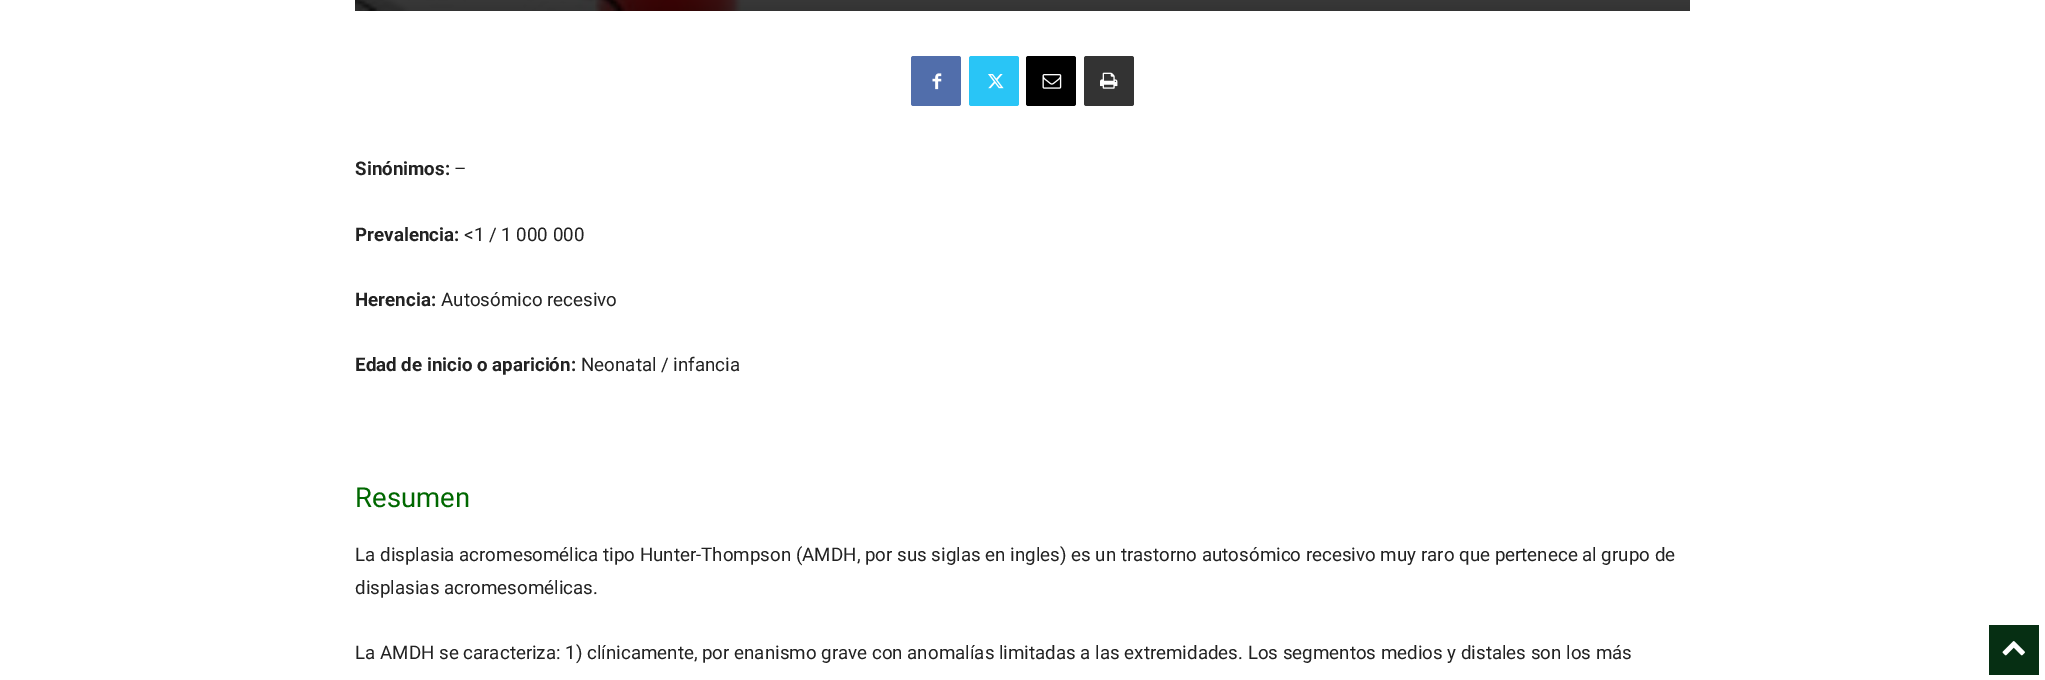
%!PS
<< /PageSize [2045 680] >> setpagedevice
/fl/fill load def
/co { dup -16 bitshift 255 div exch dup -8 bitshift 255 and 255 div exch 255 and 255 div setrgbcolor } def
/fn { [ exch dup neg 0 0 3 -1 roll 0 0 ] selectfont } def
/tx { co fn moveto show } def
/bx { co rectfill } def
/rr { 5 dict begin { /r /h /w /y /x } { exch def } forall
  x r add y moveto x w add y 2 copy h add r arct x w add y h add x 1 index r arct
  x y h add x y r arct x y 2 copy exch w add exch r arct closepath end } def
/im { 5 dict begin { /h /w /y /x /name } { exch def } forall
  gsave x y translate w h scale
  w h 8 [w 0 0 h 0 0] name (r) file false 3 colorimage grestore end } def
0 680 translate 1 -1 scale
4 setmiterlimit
0 0 2045 680 16#FFFFFF bx
(media/1.raw) 355 0 1335 11 im
16#516EAB co
911 56 50 50 2.5 rr fl
(media/2.raw) 932 73 10 17 im
16#29C5F6 co
969 56 50 50 2.5 rr fl
(media/3.raw) 988 74 16 15 im
16#000000 co
1026 56 50 50 2.5 rr fl
(media/4.raw) 1042 74 20 15 im
16#333333 co
1084 56 50 50 2.5 rr fl
(media/5.raw) 1100 72 18 17 im
1989 625 50 50 16#062F13 bx
(media/6.raw) 2002 641 23 15 im
(Sinónimos:) 355 175 /Roboto-Bold 18.75 16#222222 tx
(–) 454 175 /Roboto-Regular 18.75 16#222222 tx
(Prevalencia:) 355 241 /Roboto-Bold 18.75 16#222222 tx
(<1 / 1 000 000) 464 241 /Roboto-Regular 18.75 16#222222 tx
(Herencia:) 355 306 /Roboto-Bold 18.75 16#222222 tx
(Autosómico recesivo) 441 306 /Roboto-Regular 18.75 16#222222 tx
(Edad de inicio o aparición:) 355 371 /Roboto-Bold 18.75 16#222222 tx
(Neonatal / infancia) 581 371 /Roboto-Regular 18.75 16#222222 tx
(Resumen) 355 507 /Roboto-Regular 27.5 16#006800 tx
(La displasia acromesomélica tipo Hunter-Thompson \(AMDH, por sus siglas en ingles\) es un trastorno autosómico recesivo muy raro que pertenece al grupo de) 355 561 /Roboto-Regular 18.75 16#222222 tx
(displasias acromesomélicas.) 355 594 /Roboto-Regular 18.75 16#222222 tx
(La AMDH se caracteriza: 1\) clínicamente, por enanismo grave con anomalías limitadas a las extremidades. Los segmentos medios y distales son los más) 355 659 /Roboto-Regular 18.75 16#222222 tx
showpage
